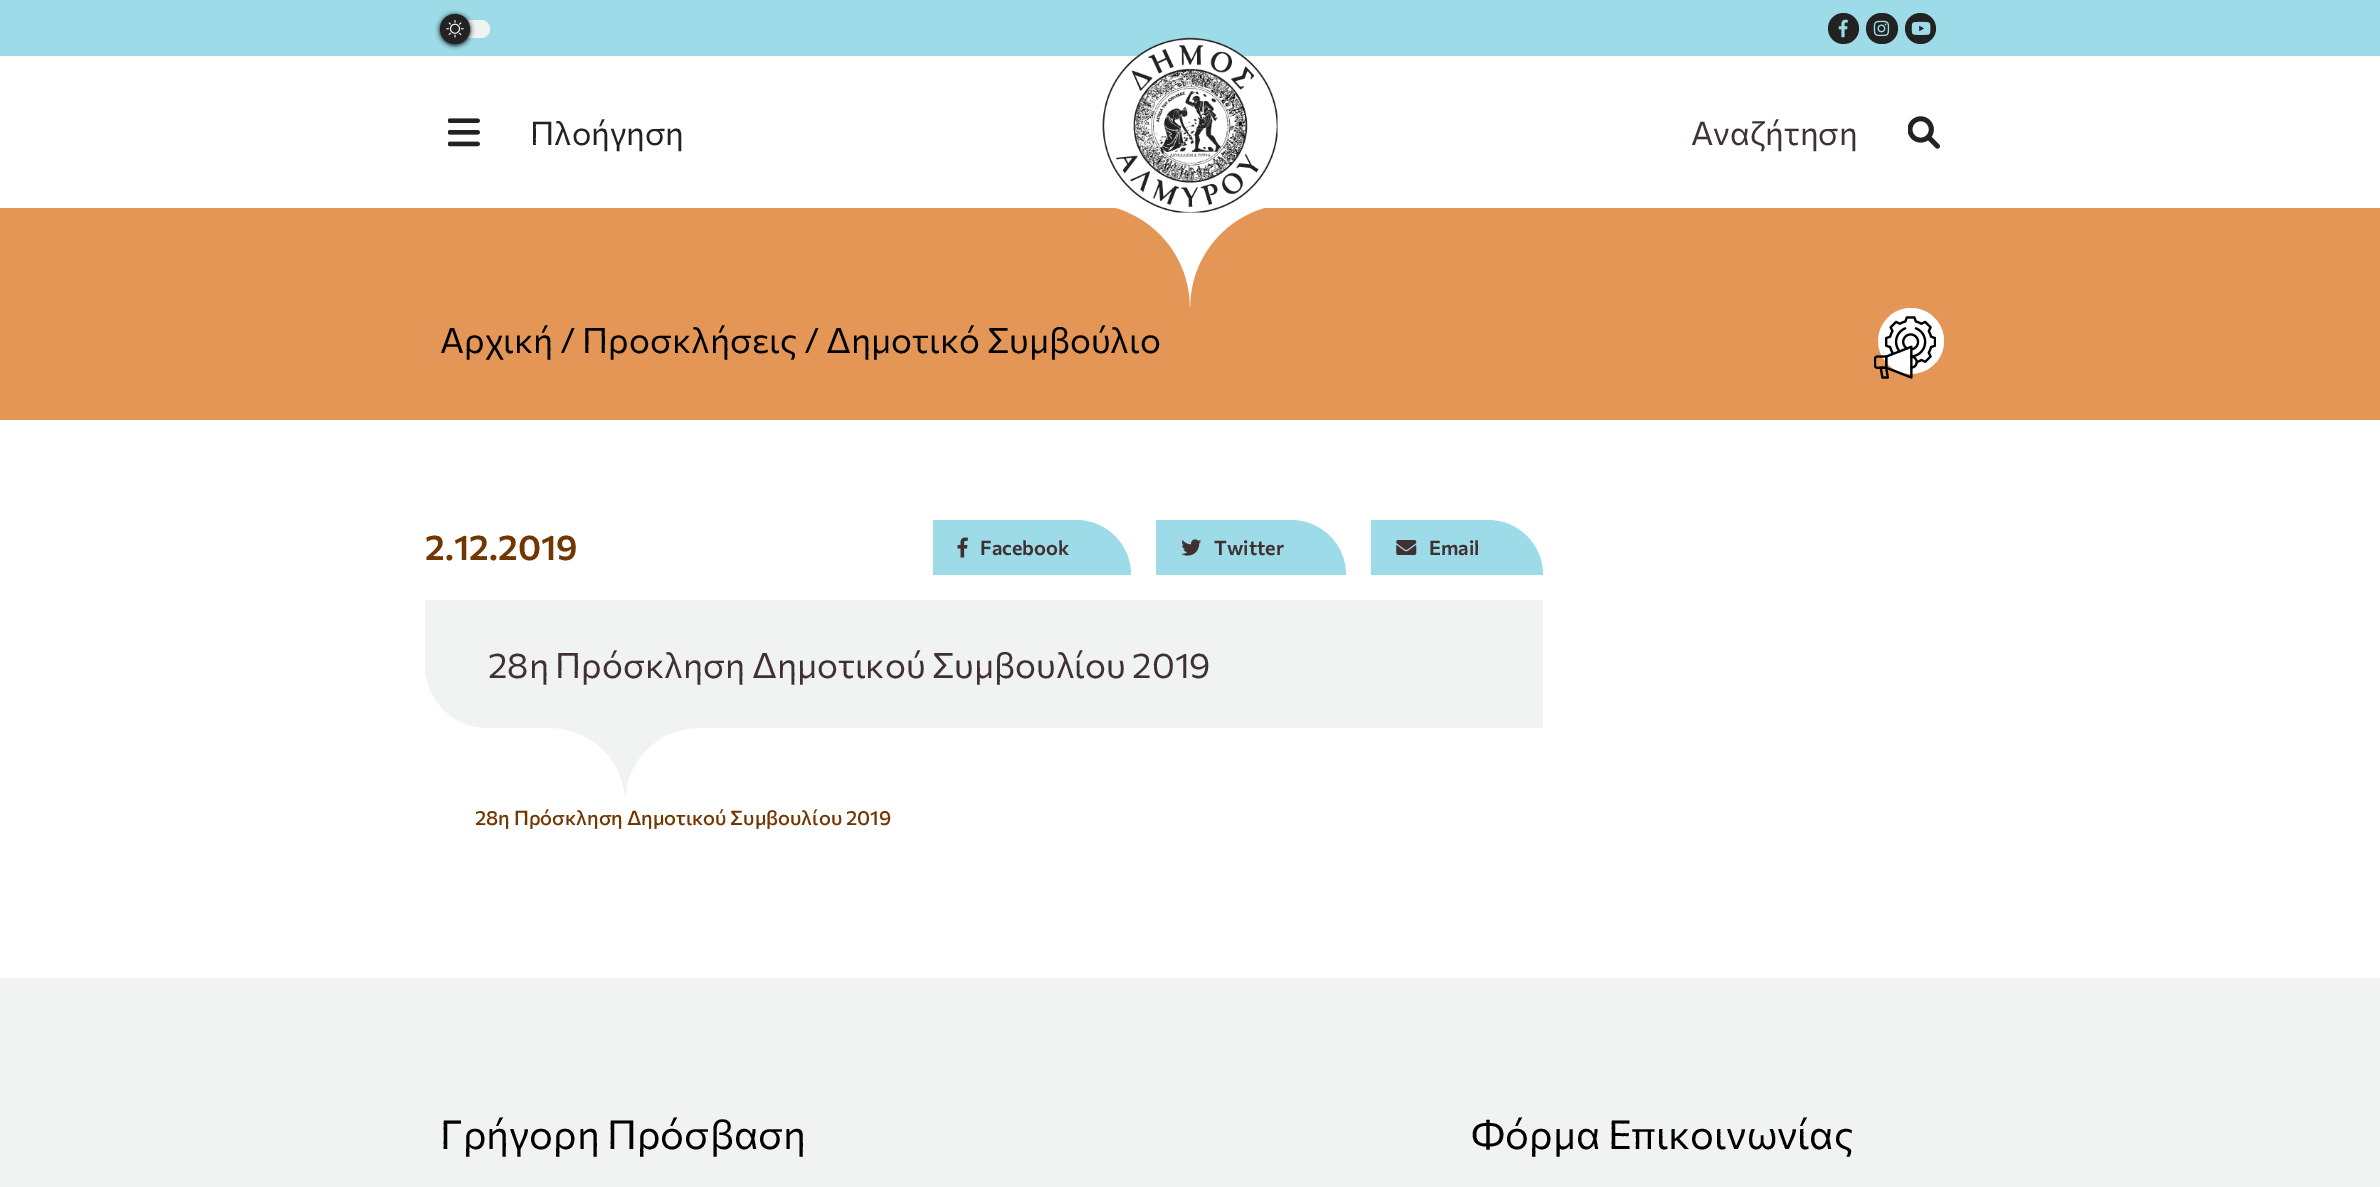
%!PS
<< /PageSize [2380 1187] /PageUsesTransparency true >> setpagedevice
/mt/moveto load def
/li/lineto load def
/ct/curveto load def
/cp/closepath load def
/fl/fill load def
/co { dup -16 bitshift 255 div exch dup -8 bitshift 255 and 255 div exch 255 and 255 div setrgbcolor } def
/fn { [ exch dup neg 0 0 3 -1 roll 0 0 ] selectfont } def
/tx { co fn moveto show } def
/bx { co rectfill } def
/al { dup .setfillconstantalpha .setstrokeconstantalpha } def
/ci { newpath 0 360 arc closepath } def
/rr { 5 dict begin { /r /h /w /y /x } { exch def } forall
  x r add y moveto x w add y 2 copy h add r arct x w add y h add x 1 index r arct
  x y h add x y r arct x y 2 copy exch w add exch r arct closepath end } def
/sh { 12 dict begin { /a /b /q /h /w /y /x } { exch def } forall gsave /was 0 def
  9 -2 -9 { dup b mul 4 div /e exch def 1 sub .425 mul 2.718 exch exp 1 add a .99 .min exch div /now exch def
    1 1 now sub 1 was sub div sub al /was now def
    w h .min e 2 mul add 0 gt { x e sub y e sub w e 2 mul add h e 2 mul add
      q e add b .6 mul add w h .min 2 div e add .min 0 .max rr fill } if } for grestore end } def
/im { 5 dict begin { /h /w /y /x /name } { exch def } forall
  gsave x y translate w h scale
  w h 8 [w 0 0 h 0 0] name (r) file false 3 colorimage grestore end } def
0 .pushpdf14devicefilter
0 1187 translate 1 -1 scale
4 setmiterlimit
0 0 2380 1187 16#FFFFFF bx
0 0 2380 56 16#9EDBE8 bx
16#F0F3F2 co
440 20 50 18 9 rr fl
16#000000 co
440 15 30 30 15 2.5 1 sh
16#222222 co
455 29 15 ci fl
(media/1.raw) 446 20 18 18 im
1843.5 28.5 15.5 ci fl
(media/2.raw) 1838 19 10 19 im
1866 13 32 31 15.5 rr fl
(media/3.raw) 1873 20 17 17 im
1920.5 28.5 15.5 ci fl
(media/4.raw) 1911 21 20 14 im
(media/5.raw) 448 118 32 29 im
0 208 2380 212 16#E49656 bx
16#FFFFFF co
1087 204 mt 1144 204 1190 250 1190 308 ct 1190 250 1236 204 1293 204 ct cp eofill
(media/6.raw) 1102 37 176 176 im
(media/7.raw) 1908 116 32 33 im
1911 341 33 ci fl
(media/8.raw) 1874 316 62 63 im
16#9EDBE8 co
933 520 mt 1076 520 li 1106.5 520 1131 544.5 1131 575 ct 933 575 li cp fl
(media/9.raw) 957 537 11 21 im
1156 520 mt 1291 520 li 1321.5 520 1346 544.5 1346 575 ct 1156 575 li cp fl
(media/10.raw) 1181 539 21 17 im
1371 520 mt 1488 520 li 1518.5 520 1543 544.5 1543 575 ct 1371 575 li cp fl
(media/11.raw) 1396 540 21 15 im
16#F0F3F2 co
425 600 mt 1543 600 li 1543 728 li 488 728 li 453 728 425 700 425 665 ct cp fl
550 728 mt 591 728 625 761 625 802 ct 625 761 658 728 699 728 ct cp eofill
0 978 2380 209 16#F0F3F2 bx
(Πλοήγηση) 530 145 /Commissioner-Regular 32.5 16#222222 tx
(Αναζήτηση) 1691 145 /Commissioner-Regular 32.5 16#3F3132 tx
(Αρχική / Προσκλήσεις / Δημοτικό Συμβούλιο) 440 353 /Commissioner-Regular 35 16#000000 tx
(2.12.2019) 425 560 /Commissioner-SemiBold 35 16#723600 tx
(Facebook) 980 555 /Commissioner-SemiBold 20 16#3F3132 tx
(Twitter) 1214 555 /Commissioner-SemiBold 20 16#3F3132 tx
(Email) 1429 555 /Commissioner-SemiBold 20 16#3F3132 tx
(28η Πρόσκληση Δημοτικού Συμβουλίου 2019) 488 678 /Commissioner-Regular 35 16#3F3132 tx
(28η Πρόσκληση Δημοτικού Συμβουλίου 2019) 475 825 /Commissioner-Medium 20 16#723600 tx
(Γρήγορη Πρόσβαση) 440 1149 /Commissioner-Regular 40 16#000000 tx
(Φόρμα Επικοινωνίας) 1471 1149 /Commissioner-Regular 40 16#000000 tx
.poppdf14devicefilter showpage
